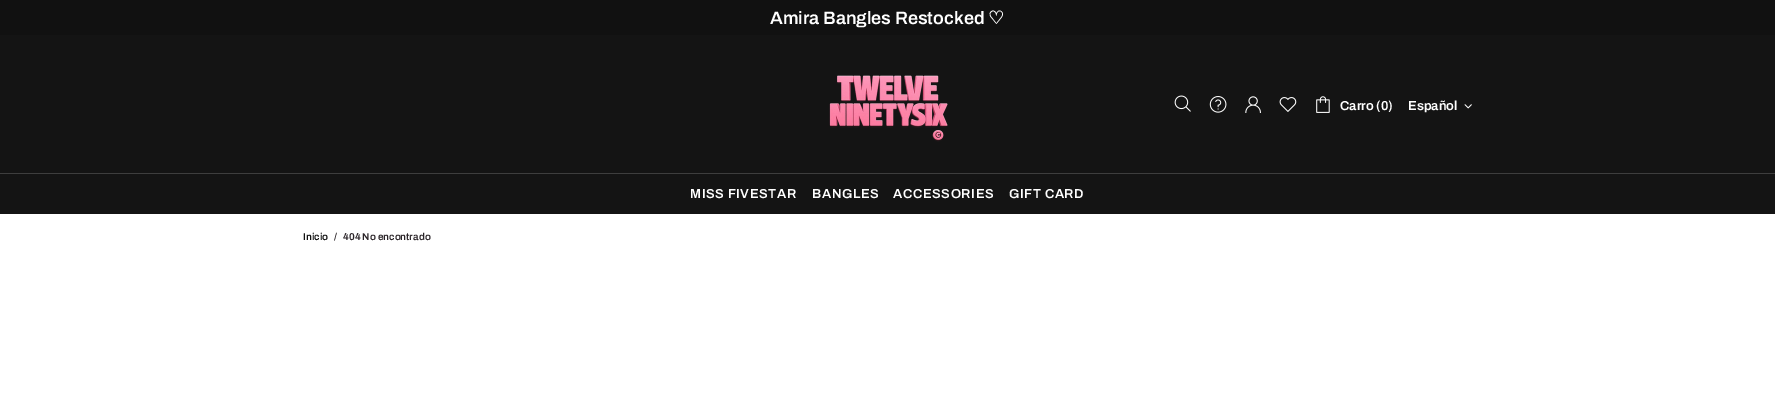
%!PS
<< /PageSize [1775 420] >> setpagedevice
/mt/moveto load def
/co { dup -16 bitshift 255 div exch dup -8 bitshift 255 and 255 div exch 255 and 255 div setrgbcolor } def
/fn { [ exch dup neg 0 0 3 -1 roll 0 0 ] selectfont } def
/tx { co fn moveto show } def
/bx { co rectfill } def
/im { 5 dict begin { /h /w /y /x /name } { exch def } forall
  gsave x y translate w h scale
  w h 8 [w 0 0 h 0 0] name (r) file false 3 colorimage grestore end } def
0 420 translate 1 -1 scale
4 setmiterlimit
0 0 1775 420 16#FFFFFF bx
0 0 1775 35 16#111111 bx
0 35 1775 138 16#141414 bx
0 173 1775 1 16#3E3E3E bx
(media/1.raw) 829 75 119 67 im
(media/2.raw) 1174 95 17 17 im
(media/3.raw) 1209 96 18 17 im
(media/4.raw) 1245 96 16 17 im
(media/5.raw) 1279 97 18 15 im
(media/6.raw) 1316 96 14 17 im
(media/7.raw) 1464 104 8 5 im
0 174 1775 40 16#141414 bx
(Amira Bangles Restocked) 770 24 /Archivo-SemiBold 18 16#FFFFFF tx
(♡) 988 24 /DejaVuSans-Bold 18 16#FFFFFF tx
(Carro \(0\)) 1340 110 /Archivo-SemiBold 13 16#FFFFFF tx
(Español) 1408 110 /Archivo-SemiBold 13 16#FFFFFF tx
690 198 mt .6 0 (MISS FIVESTAR) ashow
812 198 mt .6 0 (BANGLES) ashow
893 198 mt .6 0 (ACCESSORIES) ashow
1009 198 mt .6 0 (GIFT CARD) ashow
(Inicio) 303 240 /Archivo-SemiBold 10 16#111111 tx
(/) 334 240 /Archivo-SemiBold 10 16#2B2529 tx
(404 No encontrado) 343 240 /Archivo-SemiBold 10 16#2B2529 tx
showpage
